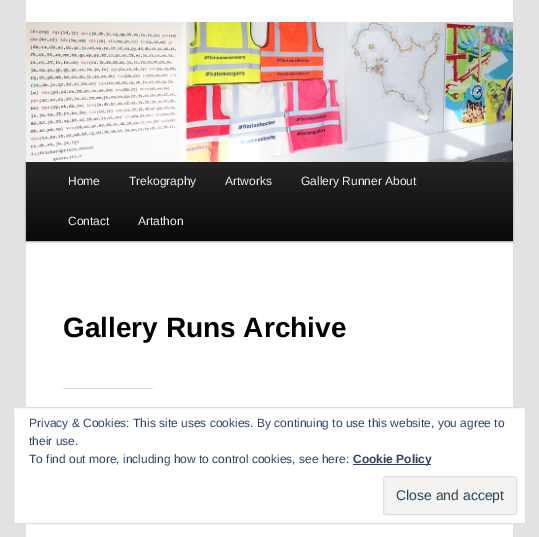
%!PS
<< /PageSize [539 537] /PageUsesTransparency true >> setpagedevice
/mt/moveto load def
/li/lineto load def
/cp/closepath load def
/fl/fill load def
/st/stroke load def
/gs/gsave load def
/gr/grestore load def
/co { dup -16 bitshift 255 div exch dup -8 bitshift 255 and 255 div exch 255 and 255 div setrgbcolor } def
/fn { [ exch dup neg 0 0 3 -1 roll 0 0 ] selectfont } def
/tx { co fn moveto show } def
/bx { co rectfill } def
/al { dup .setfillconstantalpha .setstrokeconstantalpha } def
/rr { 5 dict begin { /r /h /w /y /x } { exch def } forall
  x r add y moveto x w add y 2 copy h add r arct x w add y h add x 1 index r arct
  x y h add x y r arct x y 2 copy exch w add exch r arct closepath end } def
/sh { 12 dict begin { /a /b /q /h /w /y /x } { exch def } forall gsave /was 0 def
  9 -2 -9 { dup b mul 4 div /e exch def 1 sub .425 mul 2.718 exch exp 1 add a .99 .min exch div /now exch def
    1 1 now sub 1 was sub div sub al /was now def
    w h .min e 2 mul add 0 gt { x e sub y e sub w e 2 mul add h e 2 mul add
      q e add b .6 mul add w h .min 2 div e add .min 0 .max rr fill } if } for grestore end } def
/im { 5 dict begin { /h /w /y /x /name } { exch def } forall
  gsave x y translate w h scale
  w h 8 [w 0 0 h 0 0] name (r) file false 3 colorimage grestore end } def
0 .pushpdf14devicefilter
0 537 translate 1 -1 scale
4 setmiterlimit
0 0 539 537 16#E2E2E2 bx
26 0 487 537 16#FFFFFF bx
16#000000 co
26 162 487 80 0 1 .4 sh
(media/1.raw) 26 22 487 140 im
gs 26 162 mt 513 162 li 513 241 li 26 241 li cp clip newpath
<< /ShadingType 2 /ColorSpace /DeviceRGB /Coords [270 161 270 241] /Extend [true true] /Function << /FunctionType 2 /Domain [0 1] /C0 [.145 .145 .145] /C1 [.039 .039 .039] /N 1 >> >> shfill gr
63 388 90 1 16#DCDCDE bx
16#FFFFFF co
13.5 407.5 mt 525.5 407.5 li 525.5 523.5 li 13.5 523.5 li cp gs fl gr
16#DEDEDE co
st
353 464 78 1 16#2E4467 bx
16#F3F3F3 co
383.5 476.5 133 38 2.5 rr gs fl gr
16#DEDEDE co
st
(Home) 68 185 /LiberationSans-Regular 12 16#EEEEEE tx
(Trekography) 129 185 /LiberationSans-Regular 12 16#EEEEEE tx
(Artworks) 225 185 /LiberationSans-Regular 12 16#EEEEEE tx
(Gallery Runner About) 301 185 /LiberationSans-Regular 12 16#EEEEEE tx
(Contact) 68 225 /LiberationSans-Regular 12 16#EEEEEE tx
(Artathon) 138 225 /LiberationSans-Regular 12 16#EEEEEE tx
(Gallery Runs Archive) 63 337 /LiberationSans-Bold 28 16#000000 tx
(Privacy & Cookies: This site uses cookies. By continuing to use this website, you agree to) 29 427 /LiberationSans-Regular 12 16#2E4467 tx
(their use.) 29 445 /LiberationSans-Regular 12 16#2E4467 tx
(To find out more, including how to control cookies, see here:) 29 463 /LiberationSans-Regular 12 16#2E4467 tx
(Cookie Policy) 353 463 /LiberationSans-Bold 12 16#2E4467 tx
(Close and accept) 396 500 /LiberationSans-Regular 14 16#2E4453 tx
.poppdf14devicefilter showpage
